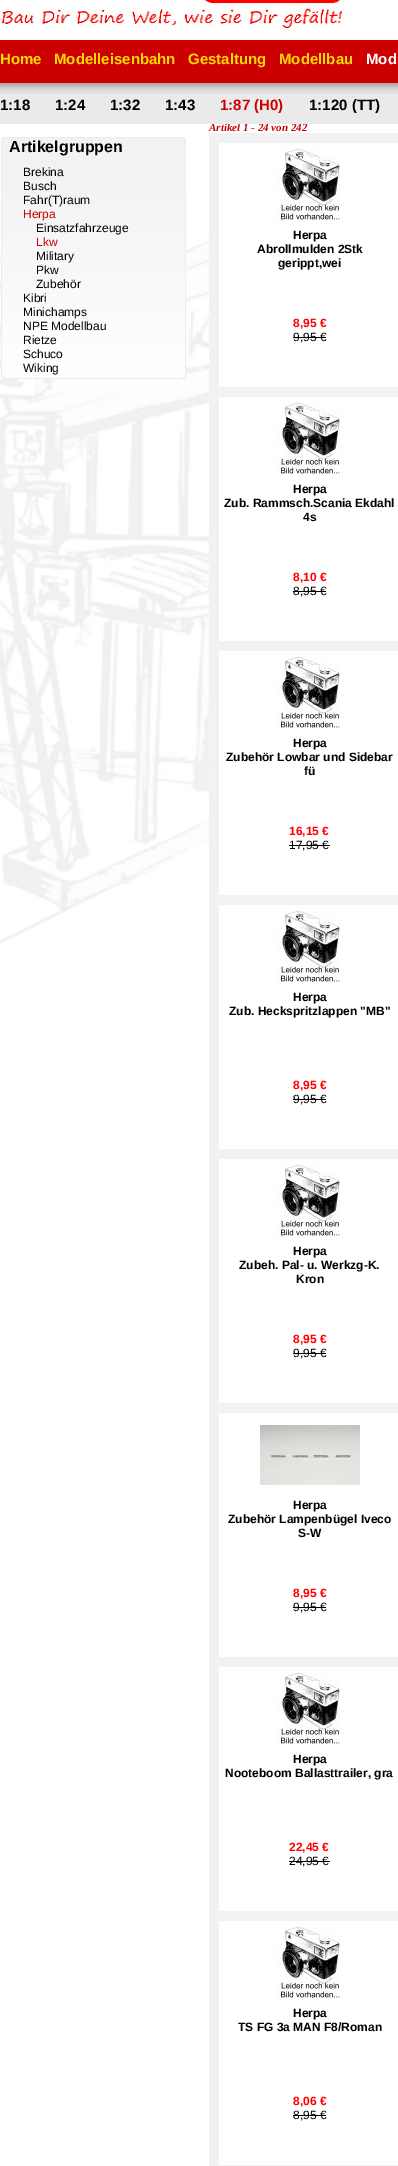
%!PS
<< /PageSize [398 2166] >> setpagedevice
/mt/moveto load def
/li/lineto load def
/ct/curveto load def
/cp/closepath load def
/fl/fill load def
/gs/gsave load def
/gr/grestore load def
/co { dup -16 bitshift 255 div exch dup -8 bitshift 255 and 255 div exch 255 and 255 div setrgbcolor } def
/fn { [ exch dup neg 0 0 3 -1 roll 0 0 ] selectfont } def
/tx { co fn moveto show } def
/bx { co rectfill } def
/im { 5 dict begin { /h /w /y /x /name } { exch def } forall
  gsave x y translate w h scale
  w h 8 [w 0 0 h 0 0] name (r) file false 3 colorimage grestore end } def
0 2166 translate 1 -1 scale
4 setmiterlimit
0 0 398 2166 16#FFFFFF bx
(media/1.raw) 0 209 209 735 im
(media/2.raw) 0 0 349 34 im
16#F2F2F2 co
6 137 mt 181 137 li 184 137 186 139 186 142 ct 186 162 li 1 162 li 1 142 li 1 139 3 137 6 137 ct cp fl
16#ECECEC co
6 137 mt 181 137 li 184 137 186 139 186 142 ct 186 162 li 1 162 li 1 142 li 1 139 3 137 6 137 ct cp 6 138 mt 181 138 li 183 138 185 140 185 142 ct 185 162 li 2 162 li 2 142 li 2 140 4 138 6 138 ct cp eofill
gs
1 162 mt 186 162 li 186 374 li 186 377 184 379 181 379 ct 6 379 li 3 379 1 377 1 374 ct cp clip newpath
gs 1 162 mt 186 162 li 186 378 li 1 378 li cp clip newpath
<< /ShadingType 2 /ColorSpace /DeviceRGB /Coords [93 162 94 378] /Extend [true true] /Function << /FunctionType 2 /Domain [0 1] /C0 [.949 .949 .949] /C1 [1 1 1] /N 1 >> >> shfill gr
gr
1 162 mt 186 162 li 186 374 li 186 377 184 379 181 379 ct 6 379 li 3 379 1 377 1 374 ct cp 2 162 mt 185 162 li 185 374 li 185 376 183 378 181 378 ct 6 378 li 4 378 2 376 2 374 ct cp eofill
209 133 189 2033 16#F2F2F2 bx
219 143 179 244 16#FFFFFF bx
(media/4.raw) 276 148 64 72 im
293 337 33 1 16#000000 bx
219 397 179 244 16#FFFFFF bx
(media/4.raw) 276 402 64 72 im
293 591 33 1 16#000000 bx
219 651 179 244 16#FFFFFF bx
(media/4.raw) 276 656 64 72 im
289 845 41 1 16#000000 bx
219 905 179 244 16#FFFFFF bx
(media/4.raw) 276 910 64 72 im
293 1099 33 1 16#000000 bx
219 1159 179 244 16#FFFFFF bx
(media/4.raw) 276 1164 64 72 im
293 1353 33 1 16#000000 bx
219 1413 179 244 16#FFFFFF bx
(media/5.raw) 260 1425 100 60 im
293 1607 33 1 16#000000 bx
219 1667 179 244 16#FFFFFF bx
(media/4.raw) 276 1672 64 72 im
289 1861 41 1 16#000000 bx
219 1921 179 244 16#FFFFFF bx
(media/4.raw) 276 1926 64 72 im
293 2115 33 1 16#000000 bx
(Artikelgruppen) 9 152 /LiberationSans-Bold 16 16#000000 tx
(Brekina) 23 176 /LiberationSans-Regular 12 16#000000 tx
(Busch) 23 190 /LiberationSans-Regular 12 16#000000 tx
(Fahr\(T\)raum) 23 204 /LiberationSans-Regular 12 16#000000 tx
(Herpa) 23 218 /LiberationSans-Regular 12 16#CC0001 tx
(Einsatzfahrzeuge) 36 232 /LiberationSans-Regular 12 16#000000 tx
(Lkw) 36 246 /LiberationSans-Regular 12 16#CC0001 tx
(Military) 36 260 /LiberationSans-Regular 12 16#000000 tx
(Pkw) 36 274 /LiberationSans-Regular 12 16#000000 tx
(Zubehör) 36 288 /LiberationSans-Regular 12 16#000000 tx
(Kibri) 23 302 /LiberationSans-Regular 12 16#000000 tx
(Minichamps) 23 316 /LiberationSans-Regular 12 16#000000 tx
(NPE Modellbau) 23 330 /LiberationSans-Regular 12 16#000000 tx
(Rietze) 23 344 /LiberationSans-Regular 12 16#000000 tx
(Schuco) 23 358 /LiberationSans-Regular 12 16#000000 tx
(Wiking) 23 372 /LiberationSans-Regular 12 16#000000 tx
(Artikel 1 - 24 von 242) 209 131 /LiberationSerif-BoldItalic 11 16#CC0001 tx
0 83 398 41 16#EAEAEA bx
(1:120 \(TT\)) 309 110 /LiberationSans-Bold 15 16#000000 tx
(1:87 \(H0\)) 220 110 /LiberationSans-Bold 15 16#CC0001 tx
(1:43) 165 110 /LiberationSans-Bold 15 16#000000 tx
(1:32) 110 110 /LiberationSans-Bold 15 16#000000 tx
(1:24) 55 110 /LiberationSans-Bold 15 16#000000 tx
(1:18) 0 110 /LiberationSans-Bold 15 16#000000 tx
(media/3.raw) 0 40 398 54 im
(Mod) 366 64 /LiberationSans-Bold 15 16#FFFFFF tx
(Modellbau) 279 64 /LiberationSans-Bold 15 16#FFDB00 tx
(Gestaltung) 188 64 /LiberationSans-Bold 15 16#FFDB00 tx
(Modelleisenbahn) 54 64 /LiberationSans-Bold 15 16#FFDB00 tx
(Home) 0 64 /LiberationSans-Bold 15 16#FFDB00 tx
(Herpa) 293 239 /LiberationSans-Bold 12 16#000000 tx
(Abrollmulden 2Stk) 257 253 /LiberationSans-Bold 12 16#000000 tx
(gerippt,wei) 278 267 /LiberationSans-Bold 12 16#000000 tx
(8,95 €) 293 327 /LiberationSans-Bold 12 16#FF0000 tx
(9,95 €) 293 341 /LiberationSans-Regular 12 16#000000 tx
(Herpa) 293 493 /LiberationSans-Bold 12 16#000000 tx
(Zub. Rammsch.Scania Ekdahl) 224 507 /LiberationSans-Bold 12 16#000000 tx
(4s) 303 521 /LiberationSans-Bold 12 16#000000 tx
(8,10 €) 293 581 /LiberationSans-Bold 12 16#FF0000 tx
(8,95 €) 293 595 /LiberationSans-Regular 12 16#000000 tx
(Herpa) 293 747 /LiberationSans-Bold 12 16#000000 tx
(Zubehör Lowbar und Sidebar) 226 761 /LiberationSans-Bold 12 16#000000 tx
(fü) 304 775 /LiberationSans-Bold 12 16#000000 tx
(16,15 €) 289 835 /LiberationSans-Bold 12 16#FF0000 tx
(17,95 €) 289 849 /LiberationSans-Regular 12 16#000000 tx
(Herpa) 293 1001 /LiberationSans-Bold 12 16#000000 tx
(Zub. Heckspritzlappen "MB") 229 1015 /LiberationSans-Bold 12 16#000000 tx
(8,95 €) 293 1089 /LiberationSans-Bold 12 16#FF0000 tx
(9,95 €) 293 1103 /LiberationSans-Regular 12 16#000000 tx
(Herpa) 293 1255 /LiberationSans-Bold 12 16#000000 tx
(Zubeh. Pal- u. Werkzg-K.) 239 1269 /LiberationSans-Bold 12 16#000000 tx
(Kron) 296 1283 /LiberationSans-Bold 12 16#000000 tx
(8,95 €) 293 1343 /LiberationSans-Bold 12 16#FF0000 tx
(9,95 €) 293 1357 /LiberationSans-Regular 12 16#000000 tx
(Herpa) 293 1509 /LiberationSans-Bold 12 16#000000 tx
(Zubehör Lampenbügel Iveco) 228 1523 /LiberationSans-Bold 12 16#000000 tx
(S-W) 298 1537 /LiberationSans-Bold 12 16#000000 tx
(8,95 €) 293 1597 /LiberationSans-Bold 12 16#FF0000 tx
(9,95 €) 293 1611 /LiberationSans-Regular 12 16#000000 tx
(Herpa) 293 1763 /LiberationSans-Bold 12 16#000000 tx
(Nooteboom Ballasttrailer, gra) 225 1777 /LiberationSans-Bold 12 16#000000 tx
(22,45 €) 289 1851 /LiberationSans-Bold 12 16#FF0000 tx
(24,95 €) 289 1865 /LiberationSans-Regular 12 16#000000 tx
(Herpa) 293 2017 /LiberationSans-Bold 12 16#000000 tx
(TS FG 3a MAN F8/Roman) 238 2031 /LiberationSans-Bold 12 16#000000 tx
(8,06 €) 293 2105 /LiberationSans-Bold 12 16#FF0000 tx
(8,95 €) 293 2119 /LiberationSans-Regular 12 16#000000 tx
showpage
